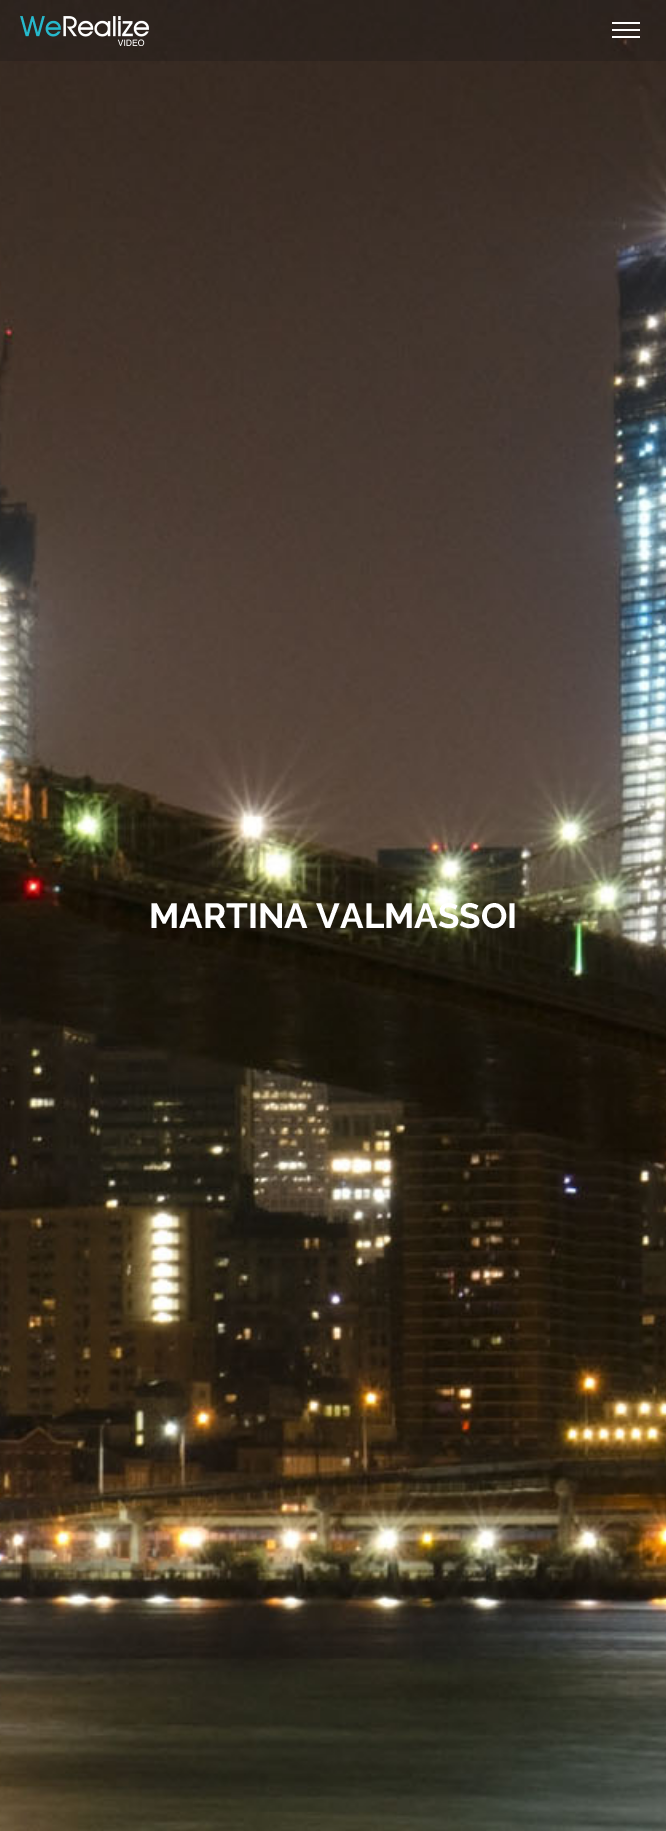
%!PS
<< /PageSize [666 1831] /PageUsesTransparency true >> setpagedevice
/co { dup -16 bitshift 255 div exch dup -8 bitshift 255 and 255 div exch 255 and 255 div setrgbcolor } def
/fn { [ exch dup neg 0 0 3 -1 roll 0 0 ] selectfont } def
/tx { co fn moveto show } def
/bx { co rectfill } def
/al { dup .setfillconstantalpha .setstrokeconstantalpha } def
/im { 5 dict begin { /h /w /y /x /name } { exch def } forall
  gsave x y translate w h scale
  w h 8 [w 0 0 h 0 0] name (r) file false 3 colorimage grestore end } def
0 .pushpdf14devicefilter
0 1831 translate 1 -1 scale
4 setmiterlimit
0 0 666 1831 16#FFFFFF bx
(media/2.raw) 0 0 666 1831 im
0.25 al
0 0 666 61 16#131416 bx
1 al
(media/1.raw) 20 16 129 30 im
612 29 28 2 16#FFFFFF bx
612 22 28 2 16#FFFFFF bx
612 36 28 2 16#FFFFFF bx
(MARTINA VALMASSOI) 149 928 /Raleway-Bold 35 16#FFFFFF tx
.poppdf14devicefilter showpage
